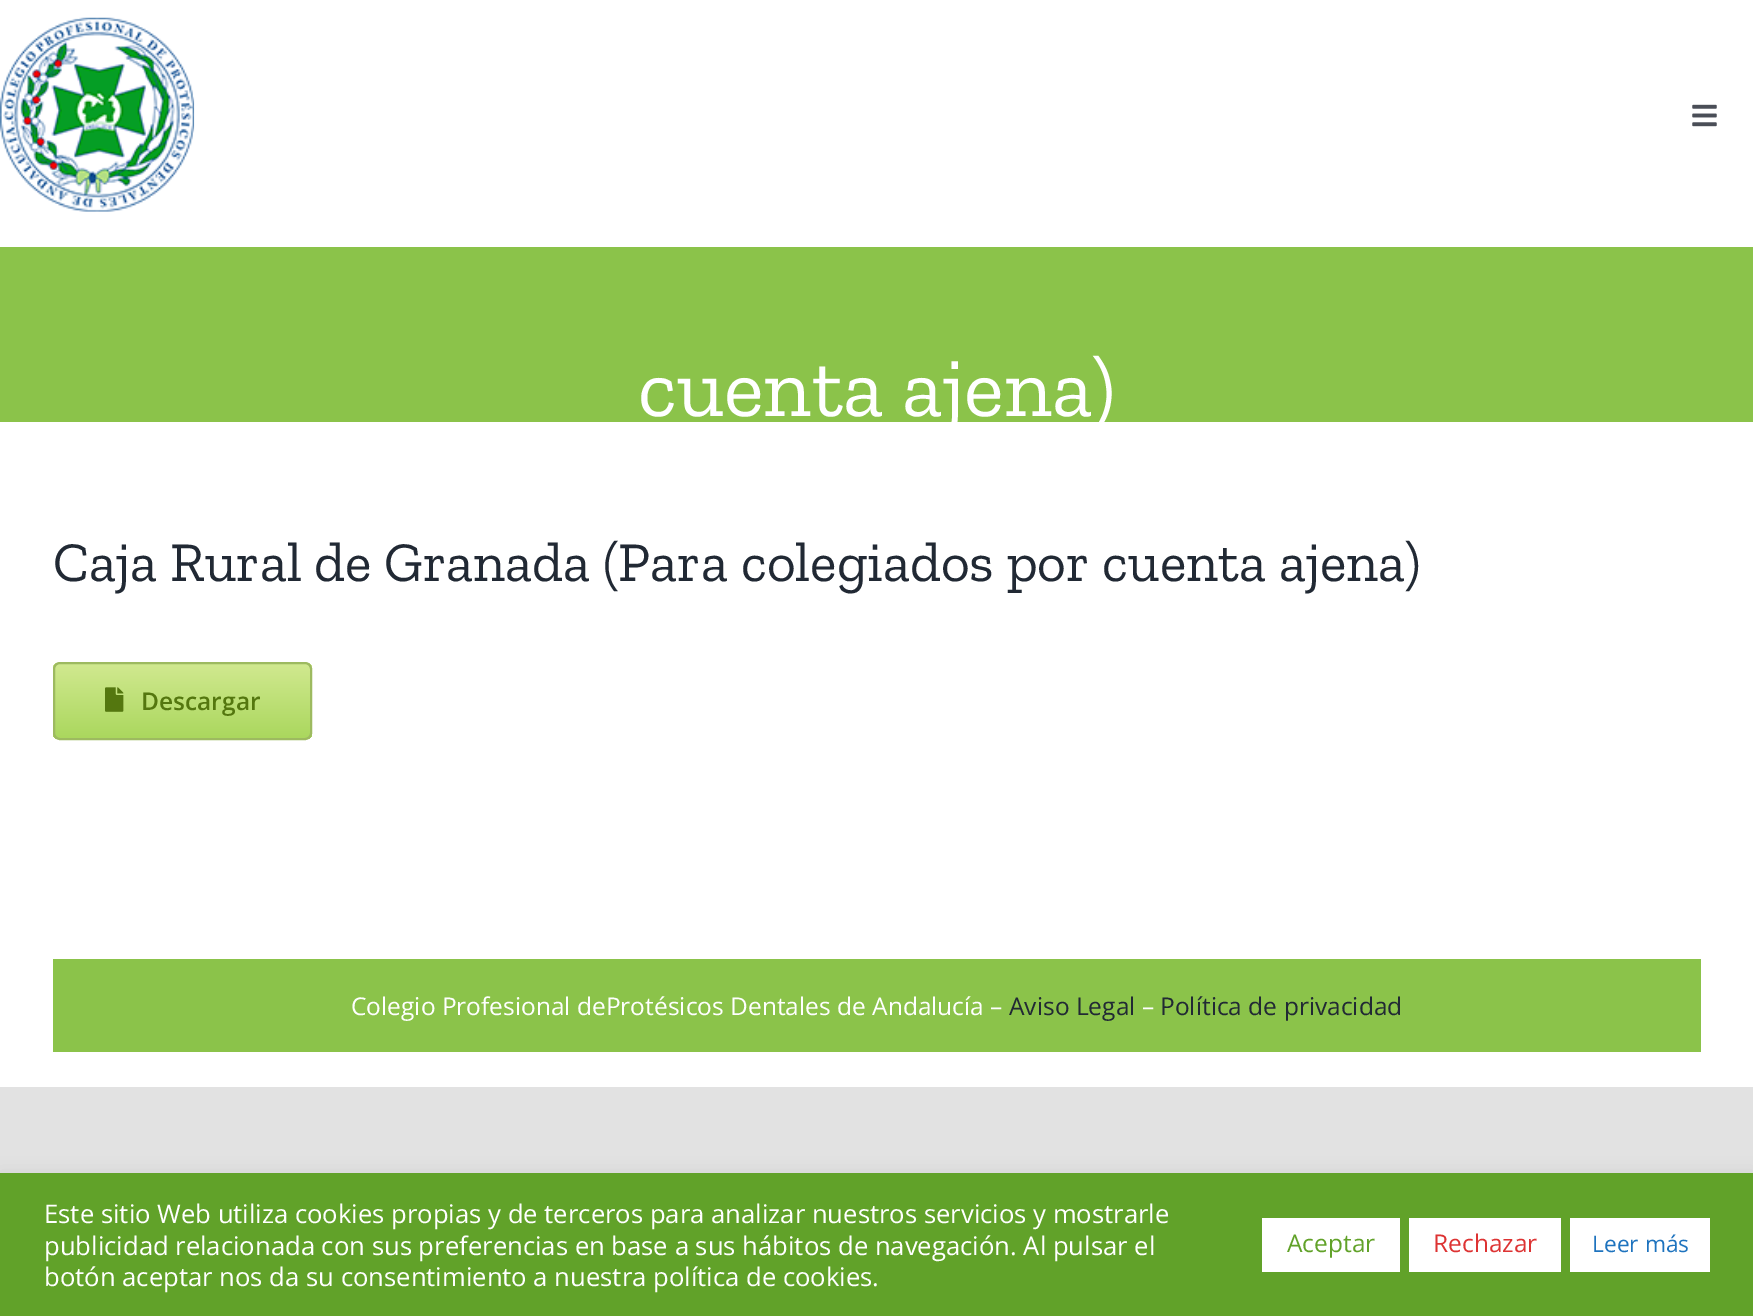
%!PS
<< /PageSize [1753 1316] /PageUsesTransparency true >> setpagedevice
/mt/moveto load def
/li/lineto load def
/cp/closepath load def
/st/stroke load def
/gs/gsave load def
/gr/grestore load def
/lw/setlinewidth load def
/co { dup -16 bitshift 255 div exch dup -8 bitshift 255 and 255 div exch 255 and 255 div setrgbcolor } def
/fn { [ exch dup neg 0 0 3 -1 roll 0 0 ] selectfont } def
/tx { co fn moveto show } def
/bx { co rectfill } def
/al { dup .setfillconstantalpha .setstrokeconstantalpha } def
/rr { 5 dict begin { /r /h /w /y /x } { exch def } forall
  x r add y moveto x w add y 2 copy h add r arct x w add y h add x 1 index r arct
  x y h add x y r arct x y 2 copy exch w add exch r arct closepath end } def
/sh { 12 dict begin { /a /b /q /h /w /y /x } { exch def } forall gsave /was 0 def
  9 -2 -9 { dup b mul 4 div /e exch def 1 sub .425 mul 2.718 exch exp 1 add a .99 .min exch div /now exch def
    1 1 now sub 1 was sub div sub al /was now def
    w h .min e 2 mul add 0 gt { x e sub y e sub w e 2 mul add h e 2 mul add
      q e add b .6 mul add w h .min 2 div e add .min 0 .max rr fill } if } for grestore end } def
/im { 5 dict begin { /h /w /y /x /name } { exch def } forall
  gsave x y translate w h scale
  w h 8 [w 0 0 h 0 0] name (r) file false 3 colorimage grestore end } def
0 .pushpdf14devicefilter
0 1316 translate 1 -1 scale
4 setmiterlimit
0 0 1753 1316 16#E2E2E2 bx
0 0 1753 1087 16#FFFFFF bx
(media/1.raw) 0 17 195 195 im
(media/2.raw) 1692 104 25 23 im
0 247 1753 175 16#8BC34A bx
gs
53 662 259 78 7 rr clip newpath
gs 53 663 mt 312 663 li 312 739 li 53 739 li cp clip newpath
<< /ShadingType 2 /ColorSpace /DeviceRGB /Coords [182 739 182 663] /Extend [true true] /Function << /FunctionType 2 /Domain [0 1] /C0 [.667 .843 .365] /C1 [.82 .914 .565] /N 1 >> >> shfill gr
gr
16#9DBA60 co
2 lw
54 663 257 76 6 rr st
(media/3.raw) 105 687 19 25 im
53 959 1648 93 16#8BC34A bx
16#ACABAB co
0 1171 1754 143 0 9 .3 sh
0 1173 1753 143 16#61A229 bx
1262 1218 138 54 16#FFFFFF bx
1409 1218 152 54 16#FFFFFF bx
1570 1218 140 54 16#FFFFFF bx
(cuenta ajena\)) 638 416 /ZillaSlab-Regular 84 16#FFFFFF tx
(Caja Rural de Granada \(Para colegiados por cuenta ajena\)) 53 581 /ZillaSlab-Regular 56 16#212934 tx
(Descargar) 141 710 /OpenSans-SemiBold 24.5 16#54770F tx
(Colegio Profesional deProtésicos Dentales de Andalucía –) 351 1015 /OpenSans-Regular 24.5 16#FFFFFF tx
(Aviso Legal) 1009 1015 /OpenSans-Regular 24.5 16#212934 tx
(–) 1142 1015 /OpenSans-Regular 24.5 16#FFFFFF tx
(Política de privacidad) 1160 1015 /OpenSans-Regular 24.5 16#212934 tx
(Este sitio Web utiliza cookies propias y de terceros para analizar nuestros servicios y mostrarle) 44 1223 /OpenSans-Regular 25.65 16#FFFFFF tx
(publicidad relacionada con sus preferencias en base a sus hábitos de navegación. Al pulsar el) 44 1255 /OpenSans-Regular 25.65 16#FFFFFF tx
(botón aceptar nos da su consentimiento a nuestra política de cookies.) 44 1286 /OpenSans-Regular 25.65 16#FFFFFF tx
(Aceptar) 1287 1252 /OpenSans-Regular 24.5 16#61A229 tx
(Rechazar) 1433 1252 /OpenSans-Regular 24.5 16#DD3333 tx
(Leer más) 1592 1252 /OpenSans-Regular 22.75 16#1E73BE tx
.poppdf14devicefilter showpage
